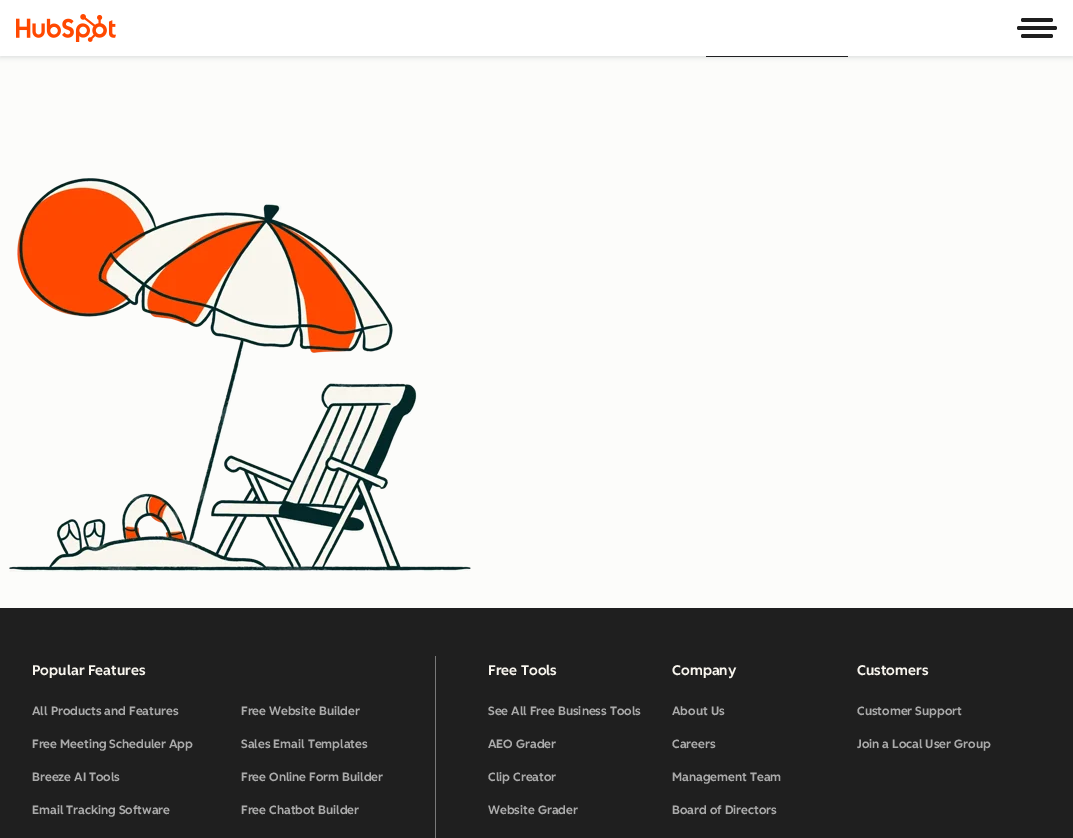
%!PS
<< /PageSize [1073 838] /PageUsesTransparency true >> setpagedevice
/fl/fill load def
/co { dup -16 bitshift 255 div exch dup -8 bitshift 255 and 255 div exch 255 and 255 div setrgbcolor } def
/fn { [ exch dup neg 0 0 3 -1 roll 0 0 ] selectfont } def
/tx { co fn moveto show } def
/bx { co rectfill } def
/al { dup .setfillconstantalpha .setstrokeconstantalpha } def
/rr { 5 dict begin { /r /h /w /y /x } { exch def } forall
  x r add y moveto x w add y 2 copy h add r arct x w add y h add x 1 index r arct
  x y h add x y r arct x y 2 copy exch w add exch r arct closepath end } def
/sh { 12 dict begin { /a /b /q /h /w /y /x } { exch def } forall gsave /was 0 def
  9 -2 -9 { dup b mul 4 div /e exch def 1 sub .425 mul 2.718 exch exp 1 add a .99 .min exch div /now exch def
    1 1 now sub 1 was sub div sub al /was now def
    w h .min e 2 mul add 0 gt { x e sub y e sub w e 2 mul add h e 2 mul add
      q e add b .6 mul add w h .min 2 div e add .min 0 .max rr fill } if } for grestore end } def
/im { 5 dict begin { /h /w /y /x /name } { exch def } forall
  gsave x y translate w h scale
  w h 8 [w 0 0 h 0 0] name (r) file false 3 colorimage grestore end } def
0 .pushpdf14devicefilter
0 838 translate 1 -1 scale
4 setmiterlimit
0 0 1073 838 16#FCFCFA bx
706 56 142 1 16#1F1F1F bx
16#213343 co
0 2 1073 56 0 2 .12 sh
0 0 1073 56 16#FFFFFF bx
(media/1.raw) 16 14 100 28 im
16#1F1F1F co
1017 26 40 4 2 rr fl
1021 18 32 4 2 rr fl
1021 34 32 4 2 rr fl
(media/2.raw) 9 178 462 394 im
0 608 1073 230 16#1F1F1F bx
435 656 1 182 16#797979 bx
(Popular Features) 32 675 /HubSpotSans-Medium 14 16#F8F5EE tx
(All Products and Features) 32 715 /HubSpotSans-Medium 12 16#AAAAAA tx
(Free Website Builder) 241 715 /HubSpotSans-Medium 12 16#AAAAAA tx
(Free Meeting Scheduler App) 32 748 /HubSpotSans-Medium 12 16#AAAAAA tx
(Sales Email Templates) 241 748 /HubSpotSans-Medium 12 16#AAAAAA tx
(Breeze AI Tools) 32 781 /HubSpotSans-Medium 12 16#AAAAAA tx
(Free Online Form Builder) 241 781 /HubSpotSans-Medium 12 16#AAAAAA tx
(Email Tracking Software) 32 814 /HubSpotSans-Medium 12 16#AAAAAA tx
(Free Chatbot Builder) 241 814 /HubSpotSans-Medium 12 16#AAAAAA tx
(Free Tools) 488 675 /HubSpotSans-Medium 14 16#F8F5EE tx
(See All Free Business Tools) 488 715 /HubSpotSans-Medium 12 16#AAAAAA tx
(AEO Grader) 488 748 /HubSpotSans-Medium 12 16#AAAAAA tx
(Clip Creator) 488 781 /HubSpotSans-Medium 12 16#AAAAAA tx
(Website Grader) 488 814 /HubSpotSans-Medium 12 16#AAAAAA tx
(Company) 672 675 /HubSpotSans-Medium 14 16#F8F5EE tx
(About Us) 672 715 /HubSpotSans-Medium 12 16#AAAAAA tx
(Careers) 672 748 /HubSpotSans-Medium 12 16#AAAAAA tx
(Management Team) 672 781 /HubSpotSans-Medium 12 16#AAAAAA tx
(Board of Directors) 672 814 /HubSpotSans-Medium 12 16#AAAAAA tx
(Customers) 857 675 /HubSpotSans-Medium 14 16#F8F5EE tx
(Customer Support) 857 715 /HubSpotSans-Medium 12 16#AAAAAA tx
(Join a Local User Group) 857 748 /HubSpotSans-Medium 12 16#AAAAAA tx
.poppdf14devicefilter showpage
